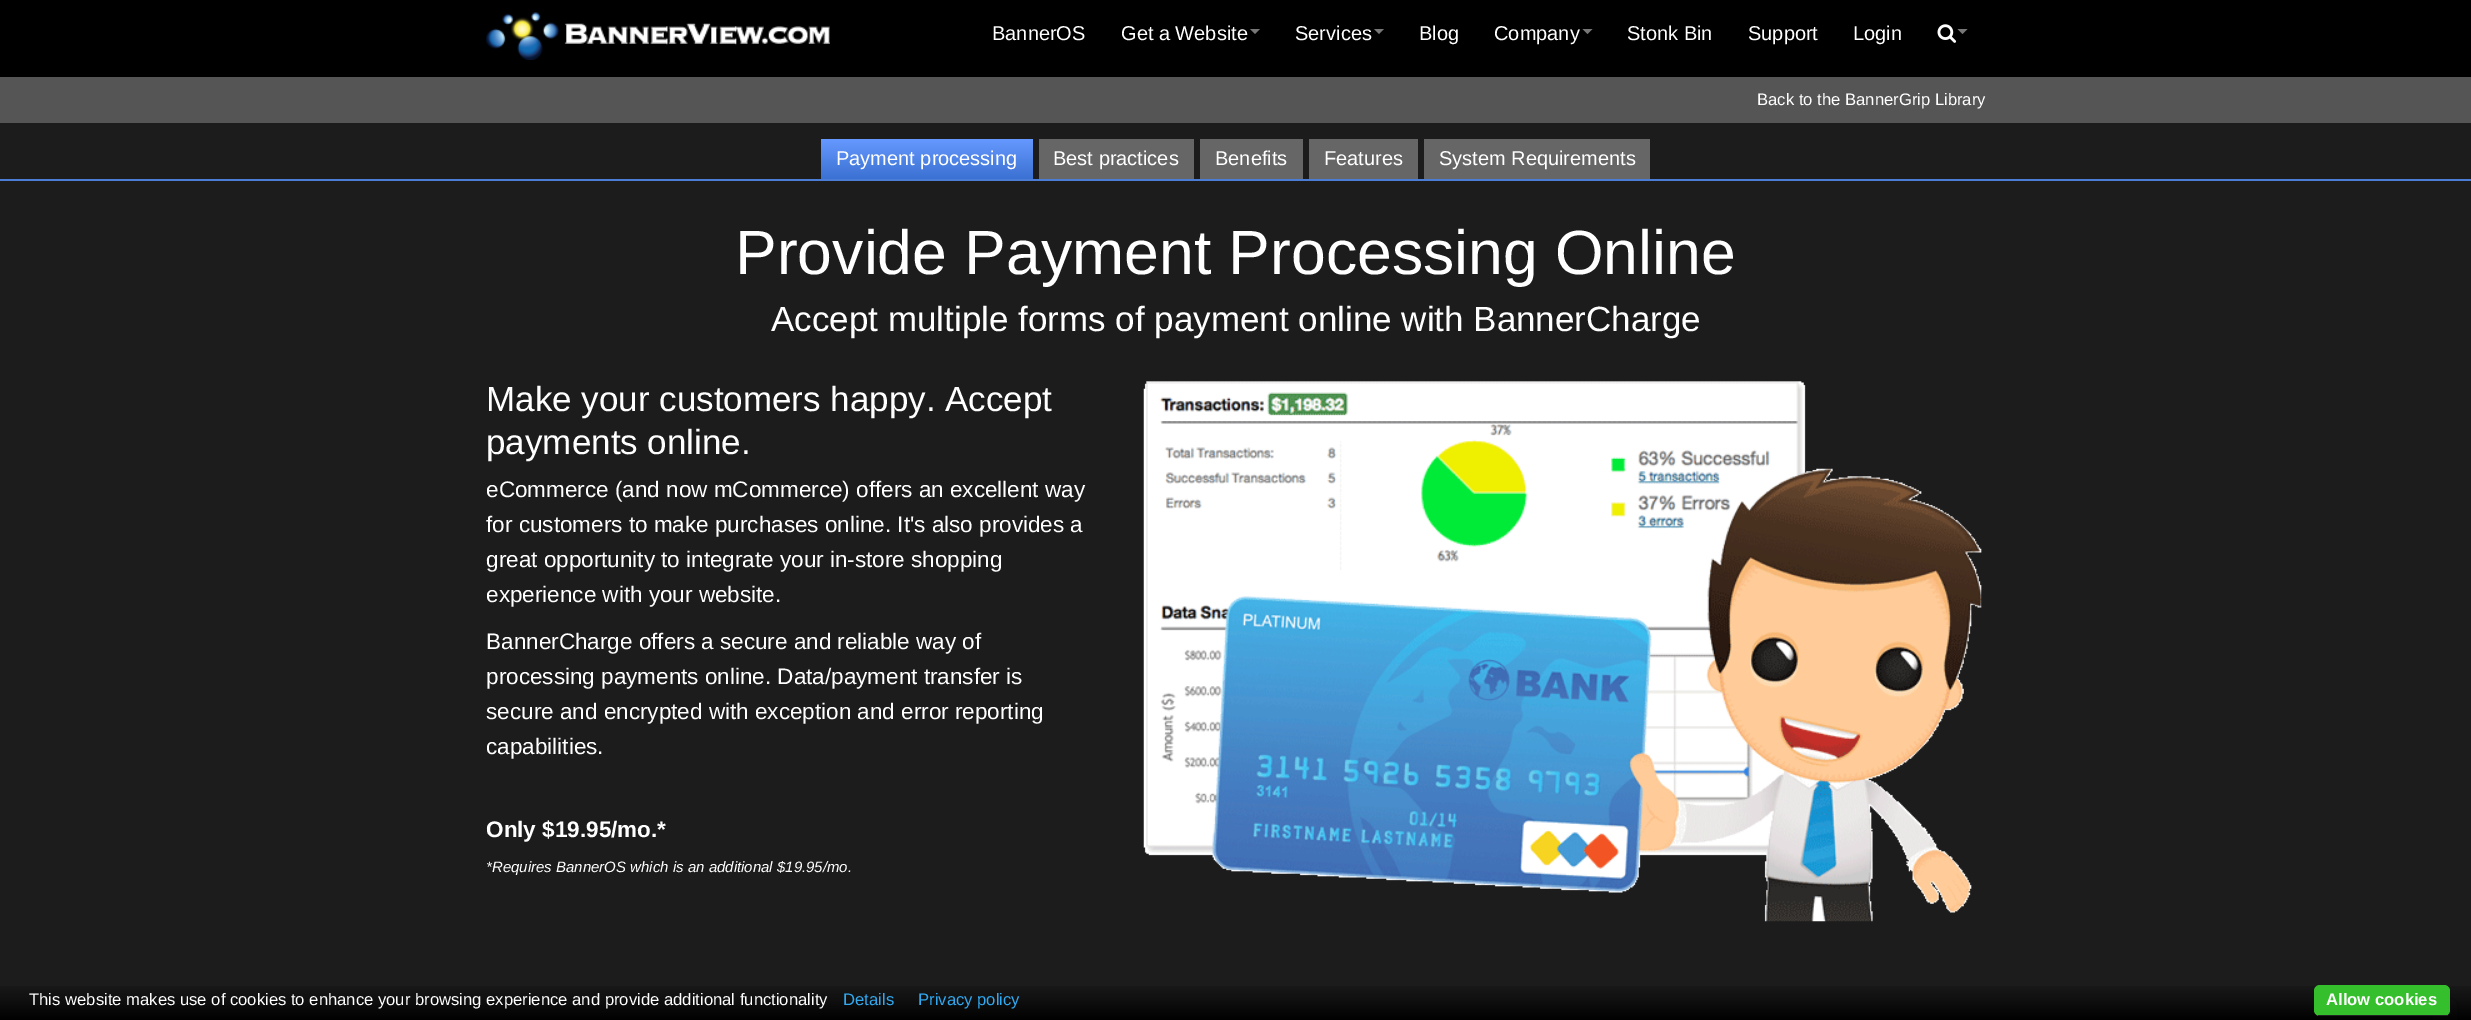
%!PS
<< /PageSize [2471 1020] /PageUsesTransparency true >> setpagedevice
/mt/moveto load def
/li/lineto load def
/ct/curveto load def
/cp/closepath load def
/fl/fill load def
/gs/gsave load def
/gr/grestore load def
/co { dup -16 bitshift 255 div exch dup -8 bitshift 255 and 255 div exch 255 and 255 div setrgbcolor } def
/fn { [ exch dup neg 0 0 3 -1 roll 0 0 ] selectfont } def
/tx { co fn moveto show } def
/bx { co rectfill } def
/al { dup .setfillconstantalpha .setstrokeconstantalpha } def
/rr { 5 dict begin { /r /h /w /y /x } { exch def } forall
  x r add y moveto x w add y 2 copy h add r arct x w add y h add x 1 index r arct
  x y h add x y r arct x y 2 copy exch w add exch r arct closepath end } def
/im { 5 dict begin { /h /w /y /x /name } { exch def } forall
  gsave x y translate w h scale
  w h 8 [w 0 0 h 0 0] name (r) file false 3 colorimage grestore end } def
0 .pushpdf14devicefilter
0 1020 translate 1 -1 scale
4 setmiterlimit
0 0 2471 1020 16#000000 bx
(media/1.raw) 486 12 344 48 im
16#777777 co
1250 29 mt 1260 29 li 1255 34 li cp fl
1374 29 mt 1384 29 li 1379 34 li cp fl
1582.5 29 mt 1592.5 29 li 1587.5 34 li cp fl
(media/2.raw) 1937 24 20 19 im
1957.5 29 mt 1967.5 29 li 1962.5 34 li cp fl
0 77 2471 46 16#555555 bx
0 123 2471 56 16#1C1C1C bx
0 179 2471 2 16#4C7DD6 bx
gs 821 139 mt 1033 139 li 1033 179 li 821 179 li cp clip newpath
<< /ShadingType 2 /ColorSpace /DeviceRGB /Coords [927 139 927 179] /Extend [true true] /Function << /FunctionType 2 /Domain [0 1] /C0 [.4 .6 1] /C1 [.231 .443 .824] /N 1 >> >> shfill gr
1039 139 155 40 16#666666 bx
1200 139 103 40 16#666666 bx
1309 139 109 40 16#666666 bx
1424 139 226 40 16#666666 bx
0 181 2471 839 16#1C1C1C bx
(media/3.raw) 1143 381 839 541 im
16#333333 co
2440 998 mt 2450 998 li 2455 998 2459 1002 2459 1007 ct 2459 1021 li 2431 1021 li 2431 1007 li 2431 1002 2435 998 2440 998 ct cp fl
16#000000 co
2440 997.5 mt 2450 997.5 li 2454.5 997.5 2459 1001.5 2459 1006.5 ct 2459 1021 li 2431 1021 li 2431 1006.5 li 2431 1001.5 2435.5 997.5 2440 997.5 ct cp 2440 999 mt 2450 999 li 2454 999 2457.5 1002 2457.5 1006.5 ct 2457.5 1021 li 2432.5 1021 li 2432.5 1006.5 li 2432.5 1002 2436 999 2440 999 ct cp eofill
0.95 al
gs 0 986 mt 2471 986 li 2471 1020 li 0 1020 li cp clip newpath
<< /ShadingType 2 /ColorSpace /DeviceRGB /Coords [1239 979 1239 1020] /Extend [true true] /Function << /FunctionType 2 /Domain [0 1] /C0 [.118 .118 .118] /C1 [0 0 0] /N 1 >> >> shfill gr
1 al
16#36BF2D co
2314 985 136 31 6 rr fl
2318 1015 130 1 16#222222 bx
(BannerOS) 992 40 /LiberationSans-Regular 20 16#FFFFFF tx
(Get a Website) 1121 40 /LiberationSans-Regular 20 16#FFFFFF tx
(Services) 1295 40 /LiberationSans-Regular 20 16#FFFFFF tx
(Blog) 1419 40 /LiberationSans-Regular 20 16#FFFFFF tx
(Company) 1494 40 /LiberationSans-Regular 20 16#FFFFFF tx
(Stonk Bin) 1627 40 /LiberationSans-Regular 20 16#FFFFFF tx
(Support) 1748 40 /LiberationSans-Regular 20 16#FFFFFF tx
(Login) 1853 40 /LiberationSans-Regular 20 16#FFFFFF tx
(Back to the BannerGrip Library) 1757 105 /LiberationSans-Regular 16.65 16#FFFFFF tx
(Payment processing) 836 165 /LiberationSans-Regular 20 16#FFFFFF tx
(Best practices) 1053 165 /LiberationSans-Regular 20 16#FFFFFF tx
(Benefits) 1215 165 /LiberationSans-Regular 20 16#FFFFFF tx
(Features) 1324 165 /LiberationSans-Regular 20 16#FFFFFF tx
(System Requirements) 1439 165 /LiberationSans-Regular 20 16#FFFFFF tx
(Provide Payment Processing Online) 735 274 /LiberationSans-Regular 62.5 16#FFFFFF tx
(Accept multiple forms of payment online with BannerCharge) 771 331 /LiberationSans-Regular 35 16#FFFFFF tx
(Make your customers happy. Accept) 486 411 /LiberationSans-Regular 35 16#FFFFFF tx
(payments online.) 486 454 /LiberationSans-Regular 35 16#FFFFFF tx
(eCommerce \(and now mCommerce\) offers an excellent way) 486 497 /LiberationSans-Regular 22.5 16#FFFFFF tx
(for customers to make purchases online. It's also provides a) 486 532 /LiberationSans-Regular 22.5 16#FFFFFF tx
(great opportunity to integrate your in-store shopping) 486 567 /LiberationSans-Regular 22.5 16#FFFFFF tx
(experience with your website.) 486 602 /LiberationSans-Regular 22.5 16#FFFFFF tx
(BannerCharge offers a secure and reliable way of) 486 649 /LiberationSans-Regular 22.5 16#FFFFFF tx
(processing payments online. Data/payment transfer is) 486 684 /LiberationSans-Regular 22.5 16#FFFFFF tx
(secure and encrypted with exception and error reporting) 486 719 /LiberationSans-Regular 22.5 16#FFFFFF tx
(capabilities.) 486 754 /LiberationSans-Regular 22.5 16#FFFFFF tx
(Only $19.95/mo.*) 486 837 /LiberationSans-Bold 22.5 16#FFFFFF tx
(*Requires BannerOS which is an additional $19.95/mo.) 486 872 /LiberationSans-Italic 15 16#FFFFFF tx
(This website makes use of cookies to enhance your browsing experience and provide additional functionality) 29 1005 /LiberationSans-Regular 16.65 16#FFFFFF tx
(Details) 843 1005 /LiberationSans-Regular 16.65 16#31A8F0 tx
(Privacy policy) 918 1005 /LiberationSans-Regular 16.65 16#31A8F0 tx
(Allow cookies) 2326 1005 /LiberationSans-Bold 16.65 16#FFFFFF tx
.poppdf14devicefilter showpage
